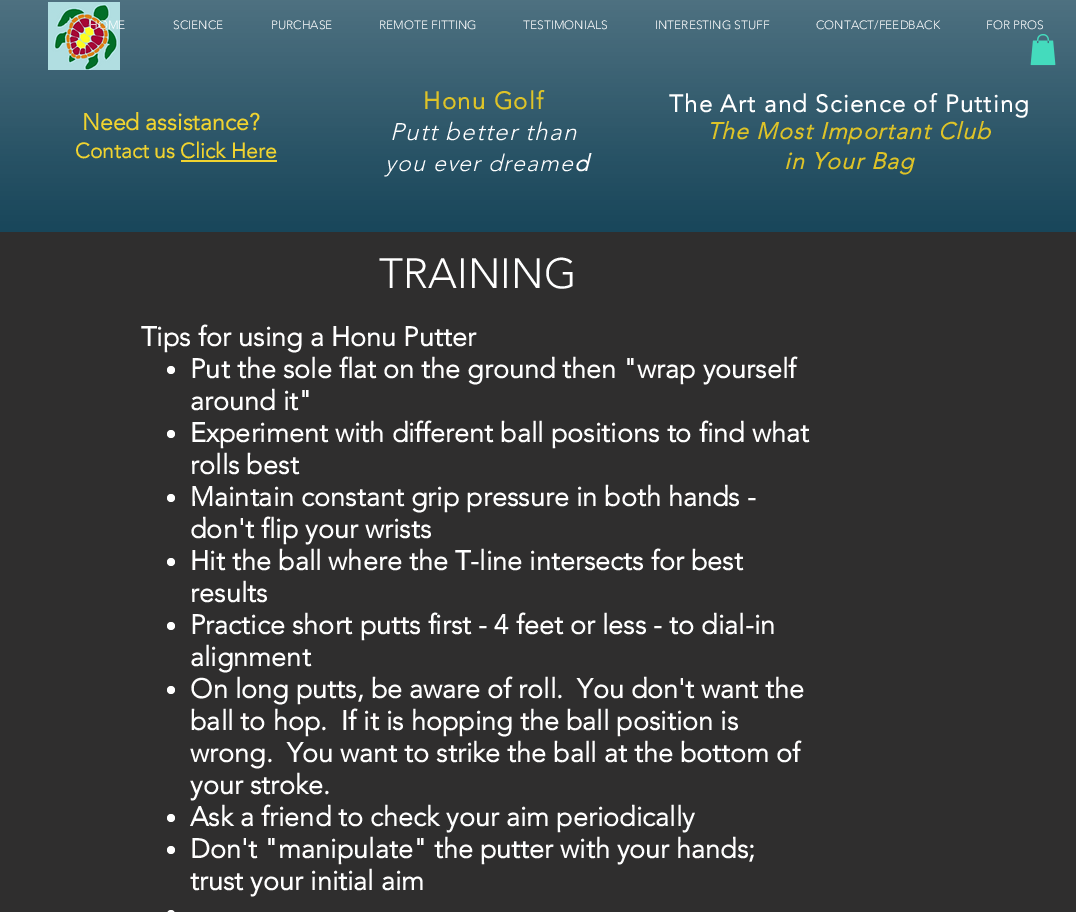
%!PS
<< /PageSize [1076 912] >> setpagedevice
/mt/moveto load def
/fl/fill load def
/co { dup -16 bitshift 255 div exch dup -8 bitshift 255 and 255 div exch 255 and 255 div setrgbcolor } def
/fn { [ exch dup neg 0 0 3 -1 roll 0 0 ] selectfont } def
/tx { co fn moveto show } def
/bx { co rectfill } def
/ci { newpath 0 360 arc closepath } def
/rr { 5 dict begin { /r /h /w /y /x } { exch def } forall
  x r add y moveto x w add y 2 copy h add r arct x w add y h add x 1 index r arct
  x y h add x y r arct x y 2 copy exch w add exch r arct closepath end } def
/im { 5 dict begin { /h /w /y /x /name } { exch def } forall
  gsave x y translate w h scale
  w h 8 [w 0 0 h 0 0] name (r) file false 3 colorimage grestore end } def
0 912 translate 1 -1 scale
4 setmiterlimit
0 0 1076 912 16#2F2E2E bx
0 0 1076 232 16#103F54 bx
(media/1.raw) 0 0 1076 232 im
(media/2.raw) 48 2 72 68 im
(media/3.raw) 1030 34 26 32 im
181 160 96 2 16#F0D330 bx
16#FFFFFF co
171 370 4 ci fl
171 434 4 ci fl
171 498 4 ci fl
171 562 4 ci fl
171 626 4 ci fl
171 690 4 ci fl
171 818 4 ci fl
171 850 4 ci fl
167 910 8 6 4 rr fl
(HOME) 89 29 /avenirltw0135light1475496-Light 12 16#FFFFFF tx
(SCIENCE) 173 29 /avenirltw0135light1475496-Light 12 16#FFFFFF tx
(PURCHASE) 271 29 /avenirltw0135light1475496-Light 12 16#FFFFFF tx
(REMOTE FITTING) 379 29 /avenirltw0135light1475496-Light 12 16#FFFFFF tx
(TESTIMONIALS) 523 29 /avenirltw0135light1475496-Light 12 16#FFFFFF tx
(INTERESTING STUFF) 655 29 /avenirltw0135light1475496-Light 12 16#FFFFFF tx
(CONTACT/FEEDBACK) 816 29 /avenirltw0135light1475496-Light 12 16#FFFFFF tx
(FOR PROS) 986 29 /avenirltw0135light1475496-Light 12 16#FFFFFF tx
(Need assistance?) 82 130 /avenirltw0135light1475496-Bold 23 16#F0D330 tx
(Contact us Click Here) 75 158 /avenirltw0135light1475496-Bold 21 16#F0D330 tx
/avenirltw0135light1475496-Bold 24 fn
16#DEC328 co
423 109 mt 1.2 0 (Honu Golf) ashow
/avenirltw0135light1475496-LightItalic 24 fn
16#FFFFFF co
390 140 mt 1.2 0 (Putt better than) ashow
/avenirltw0135light1475496-LightItalic 23 fn
385 171 mt 1.15 0 (you ever dreame) ashow
/avenirltw0135light1475496-BoldItalic 23 fn
574 171 mt 1.15 0 (d) ashow
/avenirltw0135light1475496-Bold 24 fn
669 112 mt 1.2 0 (The Art and Science of Putting) ashow
/avenirltw0135light1475496-BoldItalic 23 fn
16#DEC328 co
707 139 mt 1.15 0 (The Most Important Club) ashow
784 169 mt 1.15 0 (in Your Bag) ashow
(TRAINING) 379 288 /avenirltw0135light1475496-Light 42 16#FFFFFF tx
(Tips for using a Honu Putter) 141 346 /avenirltw0135light1475496-Bold 27 16#FFFFFF tx
(Put the sole flat on the ground then "wrap yourself) 190 378 /avenirltw0135light1475496-Bold 27 16#FFFFFF tx
(around it") 190 410 /avenirltw0135light1475496-Bold 27 16#FFFFFF tx
(Experiment with different ball positions to find what) 190 442 /avenirltw0135light1475496-Bold 27 16#FFFFFF tx
(rolls best) 190 474 /avenirltw0135light1475496-Bold 27 16#FFFFFF tx
(Maintain constant grip pressure in both hands -) 190 506 /avenirltw0135light1475496-Bold 27 16#FFFFFF tx
(don't flip your wrists) 190 538 /avenirltw0135light1475496-Bold 27 16#FFFFFF tx
(Hit the ball where the T-line intersects for best) 190 570 /avenirltw0135light1475496-Bold 27 16#FFFFFF tx
(results) 190 602 /avenirltw0135light1475496-Bold 27 16#FFFFFF tx
(Practice short putts first - 4 feet or less - to dial-in) 190 634 /avenirltw0135light1475496-Bold 27 16#FFFFFF tx
(alignment) 190 666 /avenirltw0135light1475496-Bold 27 16#FFFFFF tx
(On long putts, be aware of roll.  You don't want the) 190 698 /avenirltw0135light1475496-Bold 27 16#FFFFFF tx
(ball to hop.  If it is hopping the ball position is) 190 730 /avenirltw0135light1475496-Bold 27 16#FFFFFF tx
(wrong.  You want to strike the ball at the bottom of) 190 762 /avenirltw0135light1475496-Bold 27 16#FFFFFF tx
(your stroke.) 190 794 /avenirltw0135light1475496-Bold 27 16#FFFFFF tx
(Ask a friend to check your aim periodically) 190 826 /avenirltw0135light1475496-Bold 27 16#FFFFFF tx
(Don't "manipulate" the putter with your hands;) 190 858 /avenirltw0135light1475496-Bold 27 16#FFFFFF tx
(trust your initial aim) 190 890 /avenirltw0135light1475496-Bold 27 16#FFFFFF tx
showpage
